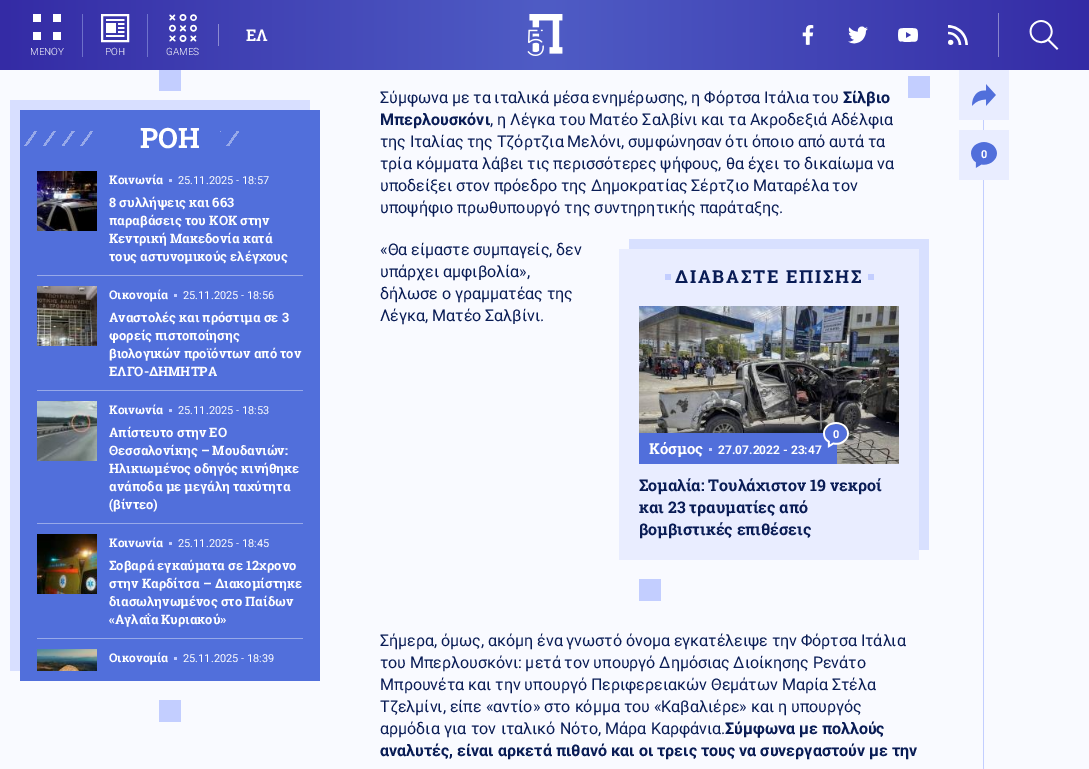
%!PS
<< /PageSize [1089 769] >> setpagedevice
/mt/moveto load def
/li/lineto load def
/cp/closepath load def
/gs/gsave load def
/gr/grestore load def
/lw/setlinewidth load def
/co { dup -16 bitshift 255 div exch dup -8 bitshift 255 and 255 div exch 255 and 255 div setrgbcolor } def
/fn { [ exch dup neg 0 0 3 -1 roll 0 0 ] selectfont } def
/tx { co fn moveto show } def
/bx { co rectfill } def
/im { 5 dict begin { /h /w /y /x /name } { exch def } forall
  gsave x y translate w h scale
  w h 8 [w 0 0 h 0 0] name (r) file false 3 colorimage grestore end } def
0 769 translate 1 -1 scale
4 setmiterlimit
0 0 1089 769 16#F9FAFF bx
gs 0 0 mt 1089 0 li 1089 70 li 0 70 li cp clip newpath
<< /ShadingType 2 /ColorSpace /DeviceRGB /Coords [0 35 1089 35] /Extend [true true] /Function << /FunctionType 3 /Domain [0 1] /Functions [<< /FunctionType 2 /Domain [0 1] /C0 [.204 .169 .647] /C1 [.31 .361 .773] /N 1 >> << /FunctionType 2 /Domain [0 1] /C0 [.31 .361 .773] /C1 [.204 .169 .647] /N 1 >>] /Bounds [.5] /Encode [0 1 0 1] >> >> shfill gr
218 24 1 22 16#8C8CD1 bx
33 14 8 8 16#FFFFFF bx
53 14 8 8 16#FFFFFF bx
33 32 8 8 16#FFFFFF bx
53 32 8 8 16#FFFFFF bx
82 14 1 43 16#6D70CA bx
16#FFFFFF co
2 lw
102 15 26 26 rectstroke
(media/1.raw) 106 19 19 18 im
147 14 1 43 16#6F73CC bx
(media/2.raw) 169 14 28 28 im
(media/3.raw) 527 14 36 42 im
998 13 1 44 16#8885CC bx
(media/4.raw) 802 25 12 20 im
(media/5.raw) 848 26 20 18 im
(media/6.raw) 898 28 20 14 im
(media/7.raw) 948 25 20 20 im
(media/8.raw) 1029 20 30 30 im
159 70 22 21 16#C3CEFF bx
10 100 300 571 16#D8DFFF bx
20 110 300 571 16#516FDB bx
gs 24 131 mt 239 131 li 239 146 li 24 146 li cp clip newpath
<< /ShadingType 2 /ColorSpace /DeviceRGB /Coords [274 211 65 65] /Extend [true true] /Function << /FunctionType 3 /Domain [0 1] /Functions [<< /FunctionType 2 /Domain [0 1] /C0 [.318 .435 .859] /C1 [.318 .435 .859] /N 1 >> << /FunctionType 2 /Domain [0 1] /C0 [.318 .435 .859] /C1 [.318 .435 .859] /N 1 >> << /FunctionType 2 /Domain [0 1] /C0 [.318 .435 .859] /C1 [.318 .435 .859] /N 1 >> << /FunctionType 2 /Domain [0 1] /C0 [.318 .435 .859] /C1 [.318 .435 .859] /N 1 >> << /FunctionType 2 /Domain [0 1] /C0 [.318 .435 .859] /C1 [.318 .435 .859] /N 1 >> << /FunctionType 2 /Domain [0 1] /C0 [.592 .663 .914] /C1 [.592 .663 .914] /N 1 >> << /FunctionType 2 /Domain [0 1] /C0 [.318 .435 .859] /C1 [.318 .435 .859] /N 1 >> << /FunctionType 2 /Domain [0 1] /C0 [.592 .663 .914] /C1 [.592 .663 .914] /N 1 >> << /FunctionType 2 /Domain [0 1] /C0 [.318 .435 .859] /C1 [.318 .435 .859] /N 1 >> << /FunctionType 2 /Domain [0 1] /C0 [.592 .663 .914] /C1 [.592 .663 .914] /N 1 >> << /FunctionType 2 /Domain [0 1] /C0 [.318 .435 .859] /C1 [.318 .435 .859] /N 1 >> << /FunctionType 2 /Domain [0 1] /C0 [.318 .435 .859] /C1 [.318 .435 .859] /N 1 >> << /FunctionType 2 /Domain [0 1] /C0 [.318 .435 .859] /C1 [.318 .435 .859] /N 1 >> << /FunctionType 2 /Domain [0 1] /C0 [.318 .435 .859] /C1 [.318 .435 .859] /N 1 >> << /FunctionType 2 /Domain [0 1] /C0 [.318 .435 .859] /C1 [.318 .435 .859] /N 1 >> << /FunctionType 2 /Domain [0 1] /C0 [.318 .435 .859] /C1 [.318 .435 .859] /N 1 >> << /FunctionType 2 /Domain [0 1] /C0 [.592 .663 .914] /C1 [.592 .663 .914] /N 1 >> << /FunctionType 2 /Domain [0 1] /C0 [.318 .435 .859] /C1 [.318 .435 .859] /N 1 >> << /FunctionType 2 /Domain [0 1] /C0 [.592 .663 .914] /C1 [.592 .663 .914] /N 1 >> << /FunctionType 2 /Domain [0 1] /C0 [.318 .435 .859] /C1 [.318 .435 .859] /N 1 >> << /FunctionType 2 /Domain [0 1] /C0 [.592 .663 .914] /C1 [.592 .663 .914] /N 1 >> << /FunctionType 2 /Domain [0 1] /C0 [.318 .435 .859] /C1 [.318 .435 .859] /N 1 >> << /FunctionType 2 /Domain [0 1] /C0 [.592 .663 .914] /C1 [.592 .663 .914] /N 1 >> << /FunctionType 2 /Domain [0 1] /C0 [.318 .435 .859] /C1 [.318 .435 .859] /N 1 >>] /Bounds [.06 .12 .18 .24 .29 .3 .35 .36 .41 .42 .47 .53 .59 .65 .71 .76 .77 .82 .83 .88 .89 .94 .95] /Encode [0 1 0 1 0 1 0 1 0 1 0 1 0 1 0 1 0 1 0 1 0 1 0 1 0 1 0 1 0 1 0 1 0 1 0 1 0 1 0 1 0 1 0 1 0 1 0 1] >> >> shfill gr
189 131 31 15 16#516FDB bx
37 275 266 1 16#97A9E9 bx
(media/9.raw) 37 171 60 60 im
169 179 3 3 16#C3CEFF bx
37 390 266 1 16#97A9E9 bx
(media/10.raw) 37 286 60 60 im
174 294 3 3 16#C3CEFF bx
37 523 266 1 16#97A9E9 bx
(media/11.raw) 37 401 60 60 im
169 409 3 3 16#C3CEFF bx
37 638 266 1 16#97A9E9 bx
(media/12.raw) 37 534 60 60 im
169 542 3 3 16#C3CEFF bx
(media/13.raw) 37 649 60 22 im
174 657 3 3 16#C3CEFF bx
159 700 22 22 16#C3CEFF bx
908 76 22 22 16#C3CEFF bx
629 239 300 311 16#D8E0FF bx
619 249 300 311 16#E9EDFF bx
665 274 6 6 16#C3CEFF bx
868 274 6 6 16#C3CEFF bx
(media/14.raw) 639 306 260 158 im
639 433 198 31 16#516FDB bx
(media/15.raw) 823 422 26 26 im
709 448 3 3 16#C3CEFF bx
639 579 22 22 16#C3CEFF bx
983 120 1 649 16#C3CEFF bx
959 70 50 50 16#E9EDFF bx
(media/16.raw) 972 84 24 22 im
959 130 50 50 16#E9EDFF bx
(media/17.raw) 971 142 26 26 im
(ΕΛ) 246 41 /RobotoSlab-Bold 16 16#FFFFFF tx
(ΜΕΝΟΥ) 30 55 /Roboto-Light 10 16#FFFFFF tx
(ΡΟΗ) 105 55 /Roboto-Light 10 16#FFFFFF tx
(GAMES) 166 55 /Roboto-Light 10 16#FFFFFF tx
(ΡΟΗ) 140 148 /RobotoSlab-Bold 28 16#FFFFFF tx
(Κοινωνία) 109 184 /RobotoSlab-Bold 12 16#FFFFFF tx
(25.11.2025 - 18:57) 178 184 /Roboto-Regular 11 16#FFFFFF tx
(8 συλλήψεις και 663) 109 207 /RobotoSlab-Bold 13 16#FFFFFF tx
(παραβάσεις του ΚΟΚ στην) 109 225 /RobotoSlab-Bold 13 16#FFFFFF tx
(Κεντρική Μακεδονία κατά) 109 243 /RobotoSlab-Bold 13 16#FFFFFF tx
(τους αστυνομικούς ελέγχους) 109 261 /RobotoSlab-Bold 13 16#FFFFFF tx
(Οικονομία) 109 299 /RobotoSlab-Bold 12 16#FFFFFF tx
(25.11.2025 - 18:56) 183 299 /Roboto-Regular 11 16#FFFFFF tx
(Αναστολές και πρόστιμα σε 3) 109 322 /RobotoSlab-Bold 13 16#FFFFFF tx
(φορείς πιστοποίησης) 109 340 /RobotoSlab-Bold 13 16#FFFFFF tx
(βιολογικών προϊόντων από τον) 109 358 /RobotoSlab-Bold 13 16#FFFFFF tx
(ΕΛΓΟ-ΔΗΜΗΤΡΑ) 109 376 /RobotoSlab-Bold 13 16#FFFFFF tx
(Κοινωνία) 109 414 /RobotoSlab-Bold 12 16#FFFFFF tx
(25.11.2025 - 18:53) 178 414 /Roboto-Regular 11 16#FFFFFF tx
(Απίστευτο στην ΕΟ) 109 437 /RobotoSlab-Bold 13 16#FFFFFF tx
(Θεσσαλονίκης – Μουδανιών:) 109 455 /RobotoSlab-Bold 13 16#FFFFFF tx
(Ηλικιωμένος οδηγός κινήθηκε) 109 473 /RobotoSlab-Bold 13 16#FFFFFF tx
(ανάποδα με μεγάλη ταχύτητα) 109 491 /RobotoSlab-Bold 13 16#FFFFFF tx
(\(βίντεο\)) 109 509 /RobotoSlab-Bold 13 16#FFFFFF tx
(Κοινωνία) 109 547 /RobotoSlab-Bold 12 16#FFFFFF tx
(25.11.2025 - 18:45) 178 547 /Roboto-Regular 11 16#FFFFFF tx
(Σοβαρά εγκαύματα σε 12χρονο) 109 570 /RobotoSlab-Bold 13 16#FFFFFF tx
(στην Καρδίτσα – Διακομίστηκε) 109 588 /RobotoSlab-Bold 13 16#FFFFFF tx
(διασωληνωμένος στο Παίδων) 109 606 /RobotoSlab-Bold 13 16#FFFFFF tx
109 624 mt -1 0 32 («Αγλαΐα Κυριακού») widthshow
(Οικονομία) 109 662 /RobotoSlab-Bold 12 16#FFFFFF tx
(25.11.2025 - 18:39) 183 662 /Roboto-Regular 11 16#FFFFFF tx
/Roboto-Regular 16 fn
16#091C55 co
380 103 mt -.25 0 32 (Σύμφωνα με τα ιταλικά μέσα ενημέρωσης, η Φόρτσα Ιτάλια του) widthshow
(Σίλβιο) 843 103 /Roboto-Bold 16 16#091C55 tx
(Μπερλουσκόνι) 380 125 /Roboto-Bold 16 16#091C55 tx
(, η Λέγκα του Ματέο Σαλβίνι και τα Ακροδεξιά Αδέλφια) 490 125 /Roboto-Regular 16 16#091C55 tx
380 147 mt -.25 0 32 (της Ιταλίας της Τζόρτζια Μελόνι, συμφώνησαν ότι όποιο από αυτά τα) widthshow
(τρία κόμματα λάβει τις περισσότερες ψήφους, θα έχει το δικαίωμα να) 380 169 /Roboto-Regular 16 16#091C55 tx
380 191 mt -.25 0 32 (υποδείξει στον πρόεδρο της Δημοκρατίας Σέρτζιο Ματαρέλα τον) widthshow
(υποψήφιο πρωθυπουργό της συντηρητικής παράταξης.) 380 213 /Roboto-Regular 16 16#091C55 tx
(«Θα είμαστε συμπαγείς, δεν) 380 255 /Roboto-Regular 16 16#091C55 tx
(υπάρχει αμφιβολία»,) 380 277 /Roboto-Regular 16 16#091C55 tx
(δήλωσε ο γραμματέας της) 380 299 /Roboto-Regular 16 16#091C55 tx
(Λέγκα, Ματέο Σαλβίνι.) 380 321 /Roboto-Regular 16 16#091C55 tx
/RobotoSlab-Bold 18 fn
675 283 mt 1.75 0 (ΔΙΑΒΑΣΤΕ ΕΠΙΣΗΣ) ashow
(0) 833 438 /Roboto-Bold 11 16#FFFFFF tx
(Κόσμος) 649 454 /RobotoSlab-Bold 15 16#FFFFFF tx
(27.07.2022 - 23:47) 718 454 /Roboto-Bold 12 16#FFFFFF tx
(Σομαλία: Τουλάχιστον 19 νεκροί) 639 491 /RobotoSlab-Bold 16 16#091C55 tx
(και 23 τραυματίες από) 639 513 /RobotoSlab-Bold 16 16#091C55 tx
(βομβιστικές επιθέσεις) 639 535 /RobotoSlab-Bold 16 16#091C55 tx
/Roboto-Regular 16 fn
380 646 mt -.1 0 32 (Σήμερα, όμως, ακόμη ένα γνωστό όνομα εγκατέλειψε την Φόρτσα Ιτάλια) widthshow
380 668 mt -.25 0 32 (του Μπερλουσκόνι: μετά τον υπουργό Δημόσιας Διοίκησης Ρενάτο) widthshow
(Μπρουνέτα και την υπουργό Περιφερειακών Θεμάτων Μαρία Στέλα) 380 690 /Roboto-Regular 16 16#091C55 tx
(Τζελμίνι, είπε «αντίο» στο κόμμα του «Καβαλιέρε» και η υπουργός) 380 712 /Roboto-Regular 16 16#091C55 tx
380 734 mt .5 0 32 (αρμόδια για τον ιταλικό Νότο, Μάρα Καρφάνια.) widthshow
(Σύμφωνα με πολλούς) 725 734 /Roboto-Bold 16 16#091C55 tx
(αναλυτές, είναι αρκετά πιθανό και οι τρεις τους να συνεργαστούν με την) 380 756 /Roboto-Bold 16 16#091C55 tx
(0) 981 158 /Roboto-Bold 11 16#FFFFFF tx
showpage
